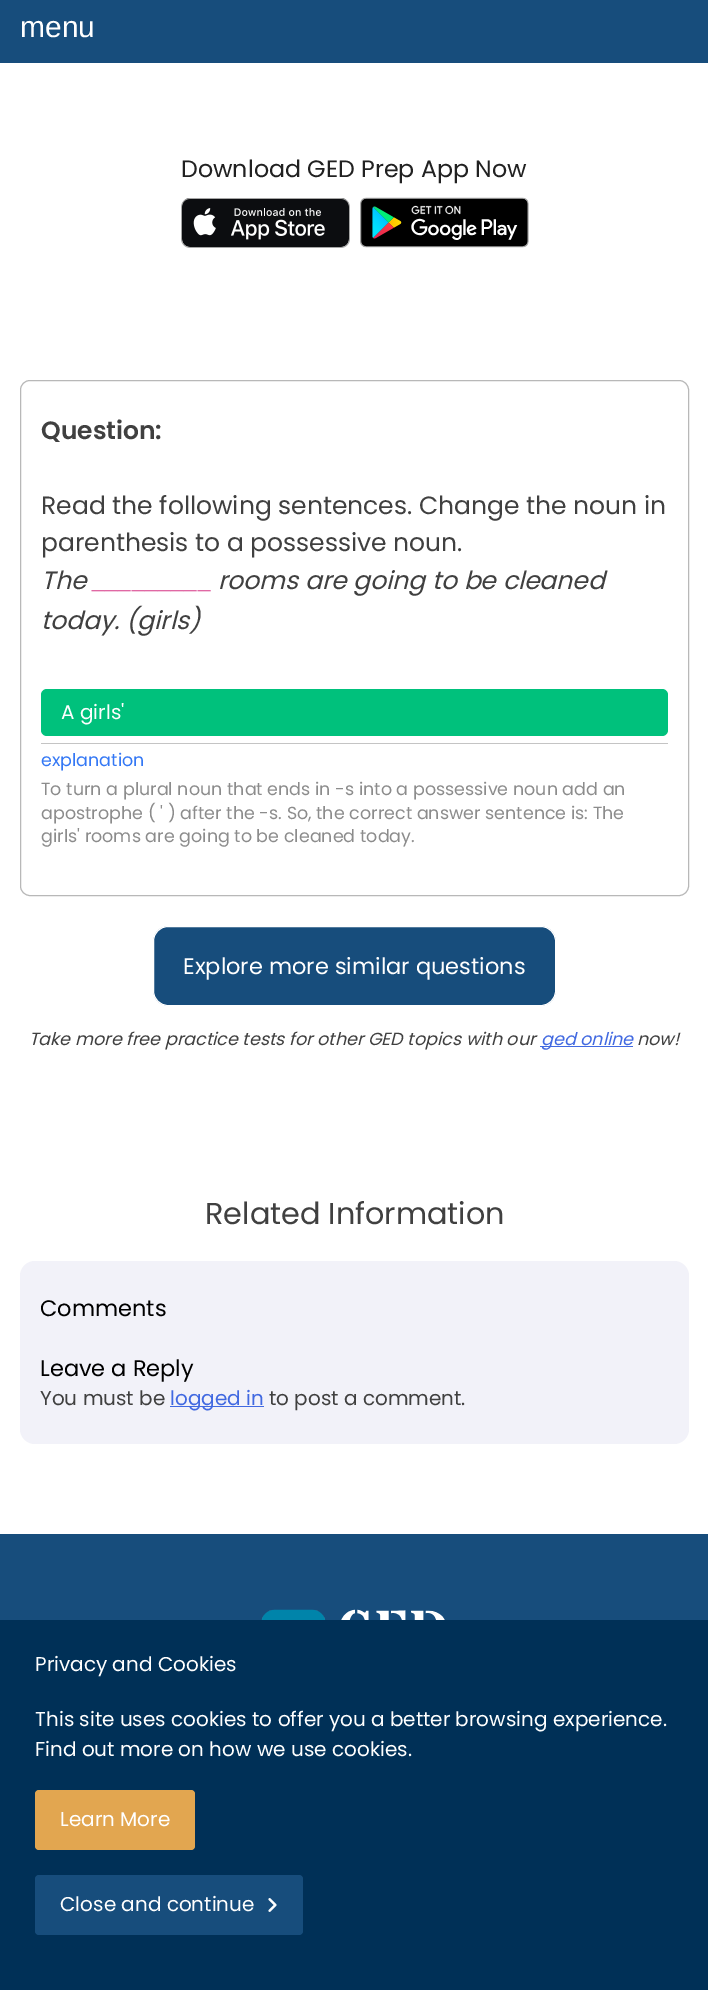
%!PS
<< /PageSize [708 1990] >> setpagedevice
/fl/fill load def
/st/stroke load def
/gs/gsave load def
/gr/grestore load def
/co { dup -16 bitshift 255 div exch dup -8 bitshift 255 and 255 div exch 255 and 255 div setrgbcolor } def
/fn { [ exch dup neg 0 0 3 -1 roll 0 0 ] selectfont } def
/tx { co fn moveto show } def
/bx { co rectfill } def
/rr { 5 dict begin { /r /h /w /y /x } { exch def } forall
  x r add y moveto x w add y 2 copy h add r arct x w add y h add x 1 index r arct
  x y h add x y r arct x y 2 copy exch w add exch r arct closepath end } def
/im { 5 dict begin { /h /w /y /x /name } { exch def } forall
  gsave x y translate w h scale
  w h 8 [w 0 0 h 0 0] name (r) file false 3 colorimage grestore end } def
0 1990 translate 1 -1 scale
4 setmiterlimit
0 0 708 1990 16#FFFFFF bx
0 0 708 63 16#174D7C bx
(media/1.raw) 181 198 169 50 im
(media/2.raw) 360 197 169 51 im
16#B8B8B8 co
20.5 380.5 668 515 9.5 rr st
16#00C17C co
41 689 627 47 6 rr fl
41 743 627 1 16#C4C4C4 bx
16#174D7C co
153.5 926.5 402 79 14.5 rr gs fl gr
16#FFFFFF co
st
540 1046 93 1 16#4169E1 bx
16#F2F2F9 co
20 1261 669 183 15 rr fl
170 1406 94 1 16#4169E1 bx
0 1534 708 86 16#174D7C bx
(media/3.raw) 261 1609 184 11 im
0 1620 708 370 16#003057 bx
16#E2A650 co
35 1790 160 60 4 rr fl
16#174D7C co
35 1875 268 60 4 rr fl
(media/4.raw) 268 1898 9 14 im
(menu) 20 37 /LiberationSans-Regular 30 16#FFFFFF tx
(Download GED Prep App Now) 181 177 /Poppins-Regular 23.75 16#212121 tx
(Question:) 41 439 /Poppins-SemiBold 25 16#404040 tx
(Read the following sentences. Change the noun in) 41 514 /Poppins-Regular 25 16#404040 tx
(parenthesis to a possessive noun.) 41 551 /Poppins-Regular 25 16#404040 tx
(The) 41 589 /Poppins-Italic 25 16#404040 tx
(_________) 93 589 /LiberationMono-Italic 22 16#D63384 tx
(rooms are going to be cleaned) 218 589 /Poppins-Italic 25 16#404040 tx
(today. \(girls\)) 41 629 /Poppins-Italic 25 16#404040 tx
(A girls') 61 719 /Poppins-Regular 20 16#FFFFFF tx
(explanation) 41 766 /Poppins-Regular 17.5 16#3478F5 tx
(To turn a plural noun that ends in -s into a possessive noun add an) 41 795 /Poppins-Regular 17.5 16#8C8C8C tx
(apostrophe \( ' \) after the -s. So, the correct answer sentence is: The) 41 819 /Poppins-Regular 17.5 16#8C8C8C tx
(girls' rooms are going to be cleaned today.) 41 842 /Poppins-Regular 17.5 16#8C8C8C tx
(Explore more similar questions) 183 974 /Poppins-Regular 22.5 16#FFFFFF tx
(Take more free practice tests for other GED topics with our) 29 1045 /Poppins-Italic 17.5 16#404040 tx
(ged online) 541 1045 /Poppins-Italic 17.5 16#4169E1 tx
(now!) 637 1045 /Poppins-Italic 17.5 16#404040 tx
(Related Information) 205 1224 /Poppins-Regular 30.25 16#404040 tx
(Comments) 40 1316 /Poppins-Regular 22.5 16#000000 tx
(Leave a Reply) 40 1376 /Poppins-Regular 22.5 16#000000 tx
(You must be) 40 1405 /Poppins-Regular 20 16#404040 tx
(logged in) 170 1405 /Poppins-Regular 20 16#4169E1 tx
(to post a comment.) 269 1405 /Poppins-Regular 20 16#404040 tx
(Privacy and Cookies) 35 1671 /Poppins-Regular 20 16#FFFFFF tx
(This site uses cookies to offer you a better browsing experience.) 35 1726 /Poppins-Regular 20 16#FFFFFF tx
(Find out more on how we use cookies.) 35 1756 /Poppins-Regular 20 16#FFFFFF tx
(Learn More) 60 1826 /Poppins-Regular 20 16#FFFFFF tx
(Close and continue) 60 1911 /Poppins-Regular 20 16#FFFFFF tx
showpage
